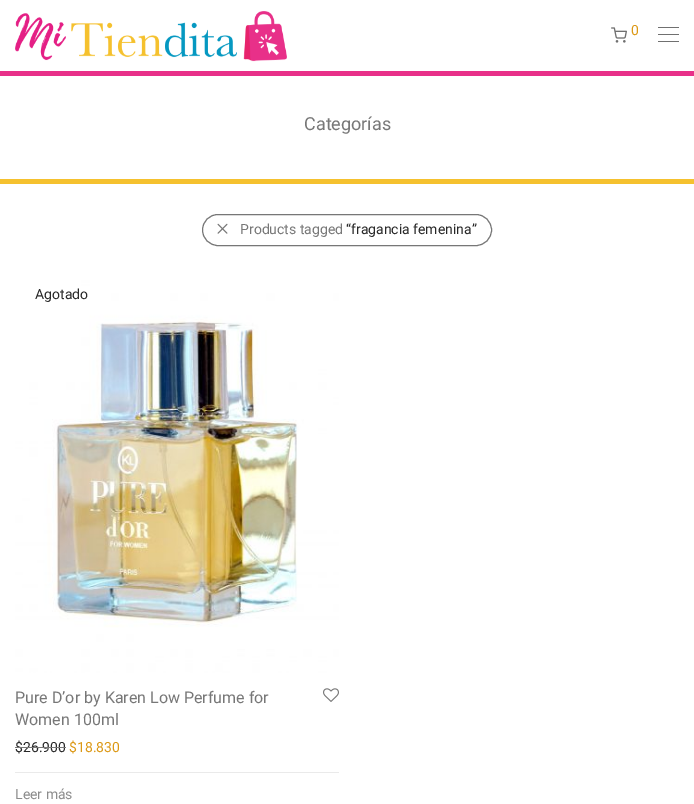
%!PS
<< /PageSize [694 804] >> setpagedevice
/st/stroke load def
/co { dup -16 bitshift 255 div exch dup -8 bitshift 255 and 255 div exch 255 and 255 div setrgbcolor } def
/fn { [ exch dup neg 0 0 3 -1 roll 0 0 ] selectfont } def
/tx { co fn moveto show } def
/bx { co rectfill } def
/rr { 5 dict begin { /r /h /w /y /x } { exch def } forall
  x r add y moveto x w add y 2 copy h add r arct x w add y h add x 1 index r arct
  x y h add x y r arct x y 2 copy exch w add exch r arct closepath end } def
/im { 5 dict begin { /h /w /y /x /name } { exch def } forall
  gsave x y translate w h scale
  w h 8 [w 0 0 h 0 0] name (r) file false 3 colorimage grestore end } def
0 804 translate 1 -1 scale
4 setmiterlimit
0 0 694 804 16#FFFFFF bx
0 71 694 5 16#E83089 bx
(media/1.raw) 15 11 272 51 im
(media/2.raw) 611 27 16 16 im
658 27 21 1 16#707070 bx
658 34 21 1 16#707070 bx
658 41 21 1 16#707070 bx
0 179 694 5 16#F5C12E bx
16#777777 co
202.5 214.5 289 31 15.5 rr st
(media/3.raw) 217 223 11 11 im
(media/4.raw) 15 271 324 402 im
(media/5.raw) 323 688 16 14 im
15 772 324 1 16#EAEAEA bx
(0) 631 35 /Roboto-Regular 14 16#DC9814 tx
(Categorías) 304 130 /Roboto-Regular 18 16#777777 tx
(Products tagged) 240 234 /Roboto-Regular 14 16#777777 tx
(“fragancia femenina”) 346 234 /Roboto-Regular 14 16#282828 tx
(Agotado) 35 299 /Roboto-Regular 14 16#282828 tx
(Pure D’or by Karen Low Perfume for) 15 703 /Roboto-Regular 16 16#777777 tx
(Women 100ml) 15 725 /Roboto-Regular 16 16#777777 tx
($26.900) 15 752 /Roboto-Regular 14 16#282828 tx
15 747 51 1 16#777777 bx
($18.830) 69 752 /Roboto-Regular 14 16#DC9814 tx
(Leer más) 15 799 /Roboto-Regular 14 16#8C8C8C tx
showpage
